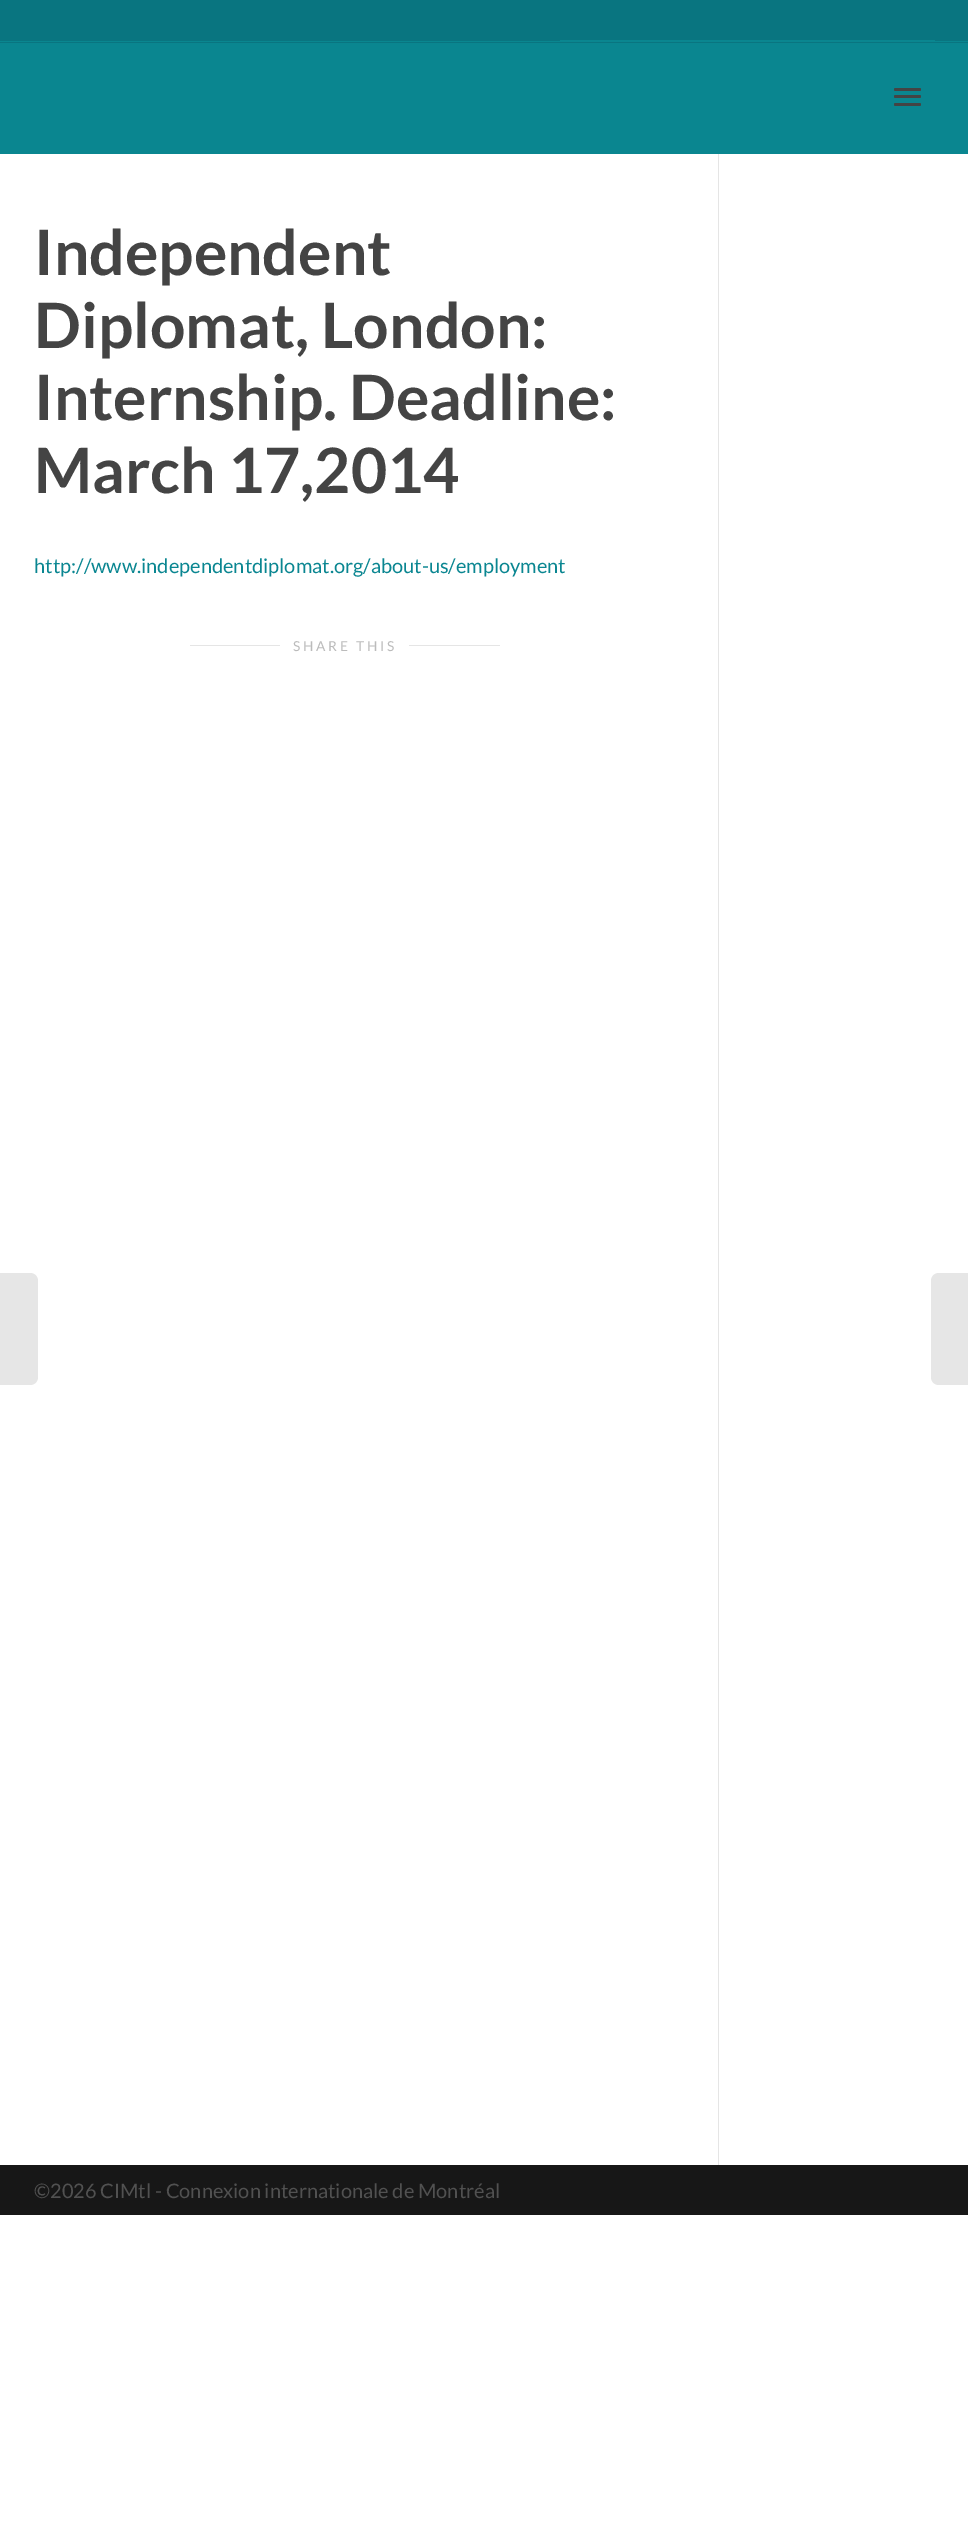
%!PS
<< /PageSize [968 2543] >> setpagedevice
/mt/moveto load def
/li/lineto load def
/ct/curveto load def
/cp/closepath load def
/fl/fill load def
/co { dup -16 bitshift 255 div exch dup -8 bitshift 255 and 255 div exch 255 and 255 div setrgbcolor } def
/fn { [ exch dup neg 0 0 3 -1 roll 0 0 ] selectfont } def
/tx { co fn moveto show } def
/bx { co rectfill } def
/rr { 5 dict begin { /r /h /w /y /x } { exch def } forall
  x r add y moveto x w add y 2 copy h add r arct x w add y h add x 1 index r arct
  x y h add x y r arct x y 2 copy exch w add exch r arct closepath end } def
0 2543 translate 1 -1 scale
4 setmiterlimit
0 0 968 2543 16#FFFFFF bx
0 0 968 43 16#097580 bx
0 41 968 1 16#0A8690 bx
560 40 375 1 16#0A8690 bx
718 153 1 2012 16#E5E5E5 bx
0 43 968 111 16#0A8690 bx
16#444444 co
894 88 27 3 1.5 rr fl
894 95 27 3 1.5 rr fl
894 103 27 3 1.5 rr fl
190 645 310 1 16#E5E5E5 bx
16#FFFFFF co
280 635 129 21 2.5 rr fl
16#E6E6E6 co
-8 1273 mt 30 1273 li 34.5 1273 38 1276.5 38 1281 ct 38 1377 li 38 1381.5 34.5 1385 30 1385 ct -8 1385 li cp fl
939 1273 mt 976 1273 li 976 1385 li 939 1385 li 934.5 1385 931 1381.5 931 1377 ct 931 1281 li 931 1276.5 934.5 1273 939 1273 ct cp fl
0 2165 968 50 16#171717 bx
(Independent) 34 275 /Lato-Bold 62.5 16#444444 tx
(Diplomat, London:) 34 348 /Lato-Bold 62.5 16#444444 tx
(Internship. Deadline:) 34 420 /Lato-Bold 62.5 16#444444 tx
(March 17,2014) 34 493 /Lato-Bold 62.5 16#444444 tx
(http://www.independentdiplomat.org/about-us/employment) 34 573 /Lato-Regular 20 16#0A8691 tx
/Lato-Regular 13.75 fn
16#BBBBBB co
293 651 mt 2.75 0 (SHARE THIS) ashow
(©2026 CIMtl - Connexion internationale de Montréal) 34 2198 /Lato-Regular 20 16#515151 tx
showpage
